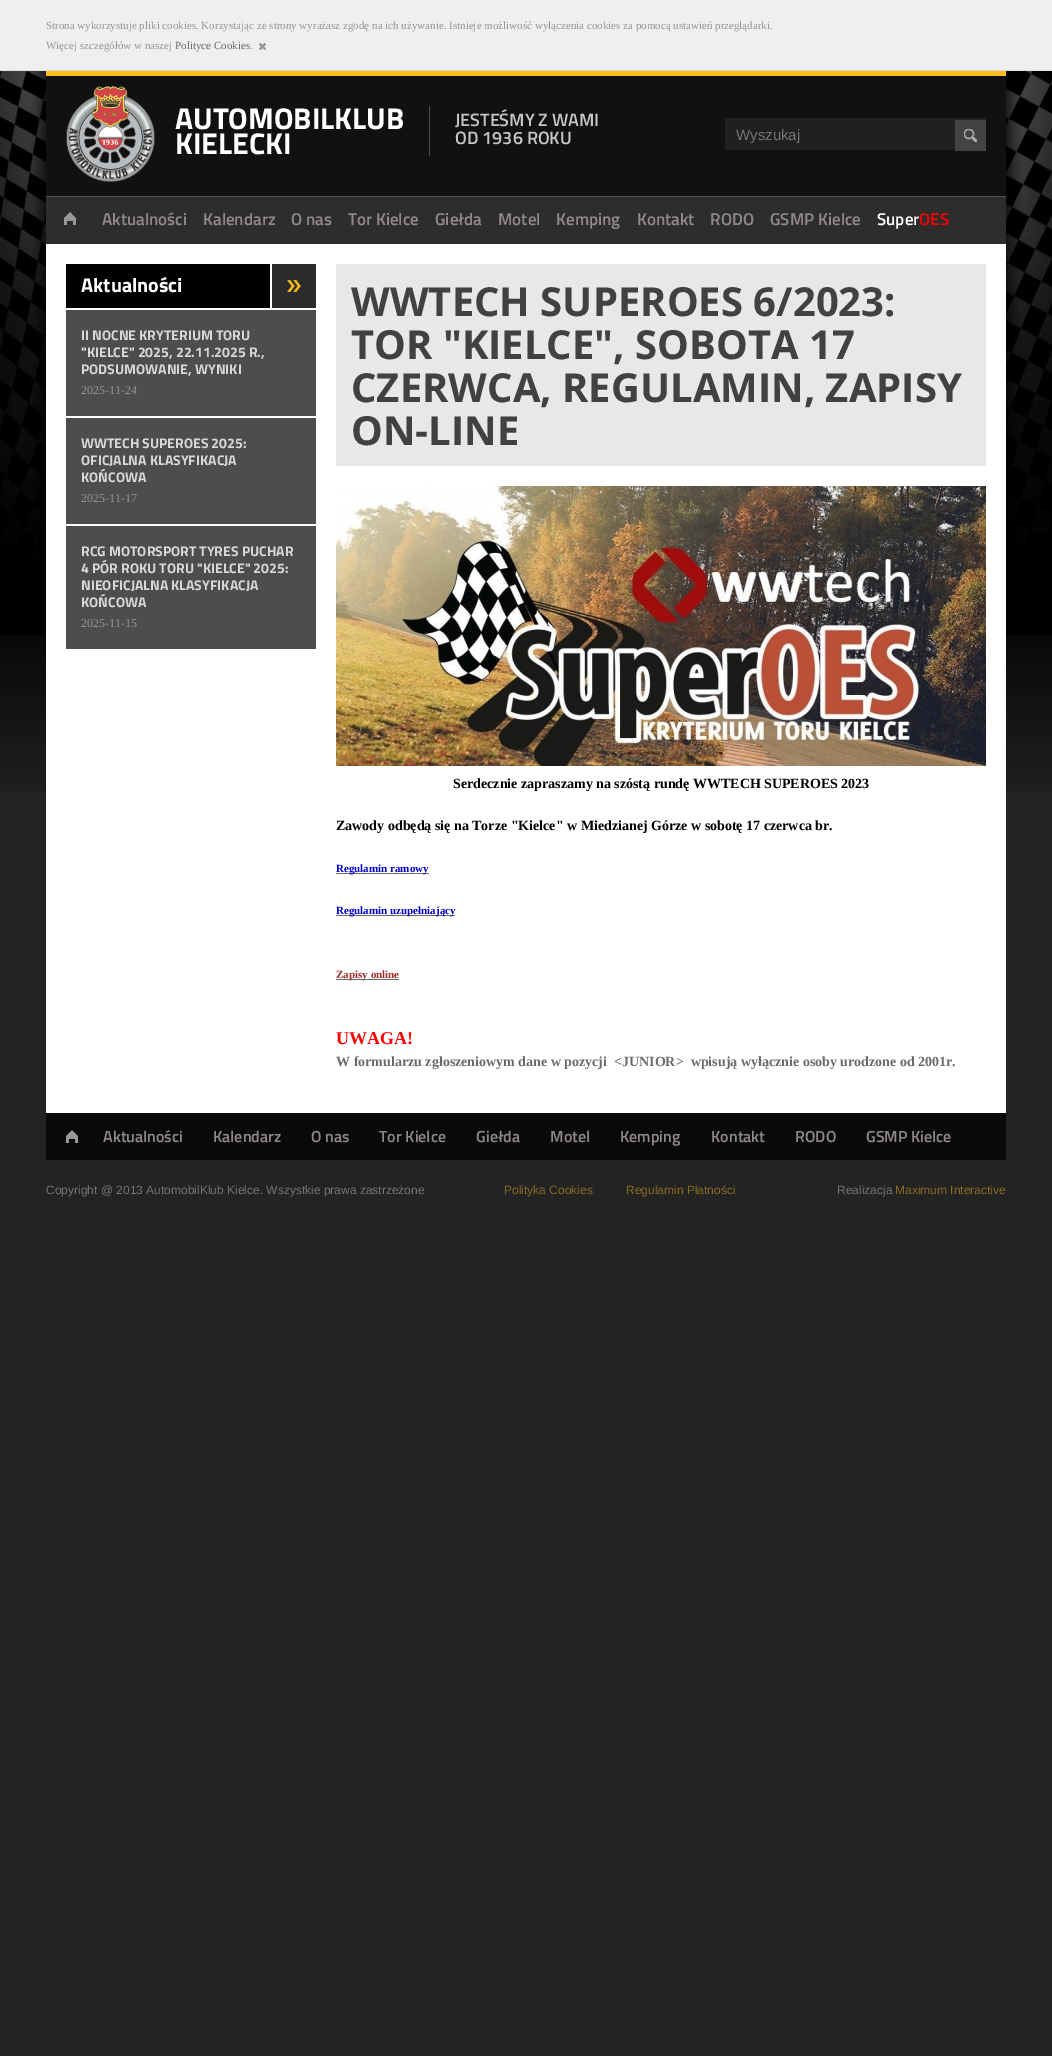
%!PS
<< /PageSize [1052 2056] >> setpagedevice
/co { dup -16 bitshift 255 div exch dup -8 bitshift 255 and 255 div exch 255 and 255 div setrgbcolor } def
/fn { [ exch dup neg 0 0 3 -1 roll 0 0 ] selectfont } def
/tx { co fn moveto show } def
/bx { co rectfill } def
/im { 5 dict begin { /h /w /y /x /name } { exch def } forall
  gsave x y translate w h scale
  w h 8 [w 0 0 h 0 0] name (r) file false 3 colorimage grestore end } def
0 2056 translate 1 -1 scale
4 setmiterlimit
0 0 1052 2056 16#232323 bx
(media/1.raw) 0 635 1052 158 im
0 0 1052 70 16#EFEFEF bx
0 70 1052 1 16#DEDEDE bx
(media/2.raw) 259 43 7 7 im
(media/3.raw) 0 71 1052 564 im
46 76 960 120 16#111111 bx
46 71 960 5 16#FFBE19 bx
(media/4.raw) 66 86 89 96 im
429 106 1 50 16#4D4D4D bx
725 118 261 32 16#202020 bx
955 120 31 31 16#434343 bx
(media/5.raw) 964 129 13 13 im
46 197 960 47 16#2D2D2D bx
46 196 960 1 16#535353 bx
(media/6.raw) 64 212 12 13 im
46 244 960 869 16#FFFFFF bx
66 264 204 44 16#000000 bx
272 264 44 44 16#2B2B2B bx
(media/7.raw) 287 280 14 12 im
66 310 250 106 16#4D4D4D bx
66 418 250 106 16#4D4D4D bx
66 526 250 123 16#4D4D4D bx
336 264 650 202 16#E8E8E8 bx
(media/8.raw) 336 486 650 280 im
336 873 93 1 16#6A6A6A bx
336 915 119 1 16#6A6A6A bx
336 979 63 1 16#6A6A6A bx
46 1113 960 47 16#090909 bx
(media/9.raw) 66 1130 12 13 im
(Strona wykorzystuje pliki cookies. Korzystając ze strony wyrażasz zgodę na ich używanie. Istnieje możliwość wyłączenia cookies za pomocą ustawień przeglądarki.) 46 29 /LiberationSerif-Regular 11 16#979696 tx
(Więcej szczegółów w naszej) 46 49 /LiberationSerif-Regular 11 16#979696 tx
(Polityce Cookies) 175 49 /LiberationSerif-Regular 11 16#6A6A6A tx
(.) 250 49 /LiberationSerif-Regular 11 16#979696 tx
(AUTOMOBILKLUB) 175 129 /TitilliumWeb-Bold 30 16#FFFFFF tx
(KIELECKI) 175 154 /TitilliumWeb-Bold 30 16#FFFFFF tx
(JESTEŚMY Z WAMI) 455 126 /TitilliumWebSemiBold-SemiBold 18 16#C5C5C5 tx
(OD 1936 ROKU) 455 144 /TitilliumWebSemiBold-SemiBold 18 16#C5C5C5 tx
(Wyszukaj) 736 140 /LiberationSans-Regular 15 16#757575 tx
(Aktualności) 102 225 /TitilliumWebSemiBold-SemiBold 17 16#918989 tx
(Kalendarz) 203 225 /TitilliumWebSemiBold-SemiBold 17 16#918989 tx
(O nas) 291 225 /TitilliumWebSemiBold-SemiBold 17 16#918989 tx
(Tor Kielce) 348 225 /TitilliumWebSemiBold-SemiBold 17 16#918989 tx
(Giełda) 435 225 /TitilliumWebSemiBold-SemiBold 17 16#918989 tx
(Motel) 498 225 /TitilliumWebSemiBold-SemiBold 17 16#918989 tx
(Kemping) 556 225 /TitilliumWebSemiBold-SemiBold 17 16#918989 tx
(Kontakt) 637 225 /TitilliumWebSemiBold-SemiBold 17 16#918989 tx
(RODO) 710 225 /TitilliumWebSemiBold-SemiBold 17 16#918989 tx
(GSMP Kielce) 770 225 /TitilliumWebSemiBold-SemiBold 17 16#918989 tx
(Super) 877 225 /TitilliumWebSemiBold-SemiBold 17 16#FFFFFF tx
(OES) 919 225 /TitilliumWebSemiBold-SemiBold 17 16#FF0000 tx
(Aktualności) 81 292 /TitilliumWeb-Bold 20 16#FFFFFF tx
(II NOCNE KRYTERIUM TORU) 81 340 /TitilliumWeb-Bold 14 16#D7D7D7 tx
("KIELCE" 2025, 22.11.2025 R.,) 81 357 /TitilliumWeb-Bold 14 16#D7D7D7 tx
(PODSUMOWANIE, WYNIKI) 81 374 /TitilliumWeb-Bold 14 16#D7D7D7 tx
(2025-11-24) 81 394 /LiberationSerif-Regular 12 16#979696 tx
(WWTECH SUPEROES 2025:) 81 448 /TitilliumWeb-Bold 14 16#D7D7D7 tx
(OFICJALNA KLASYFIKACJA) 81 465 /TitilliumWeb-Bold 14 16#D7D7D7 tx
(KOŃCOWA) 81 482 /TitilliumWeb-Bold 14 16#D7D7D7 tx
(2025-11-17) 81 502 /LiberationSerif-Regular 12 16#979696 tx
(RCG MOTORSPORT TYRES PUCHAR) 81 556 /TitilliumWeb-Bold 14 16#D7D7D7 tx
(4 PÓR ROKU TORU "KIELCE" 2025:) 81 573 /TitilliumWeb-Bold 14 16#D7D7D7 tx
(NIEOFICJALNA KLASYFIKACJA) 81 590 /TitilliumWeb-Bold 14 16#D7D7D7 tx
(KOŃCOWA) 81 607 /TitilliumWeb-Bold 14 16#D7D7D7 tx
(2025-11-15) 81 627 /LiberationSerif-Regular 12 16#979696 tx
(WWTECH SUPEROES 6/2023:) 351 316 /OpenSans-Bold 40 16#414141 tx
(TOR "KIELCE", SOBOTA 17) 351 359 /OpenSans-Bold 40 16#414141 tx
(CZERWCA, REGULAMIN, ZAPISY) 351 402 /OpenSans-Bold 40 16#414141 tx
(ON-LINE) 351 445 /OpenSans-Bold 40 16#414141 tx
(Serdecznie zapraszamy na szóstą rundę WWTECH SUPEROES 2023) 453 788 /LiberationSerif-Bold 14 16#000000 tx
(Zawody odbędą się na Torze "Kielce" w Miedzianej Górze w sobotę 17 czerwca br.) 336 830 /LiberationSerif-Bold 14 16#000000 tx
(Regulamin ramowy) 336 872 /LiberationSerif-Bold 11 16#0000CD tx
(Regulamin uzupełniający) 336 914 /LiberationSerif-Bold 11 16#0000CD tx
(Zapisy online) 336 978 /LiberationSerif-Bold 11 16#A52A2A tx
(UWAGA!) 336 1044 /LiberationSerif-Bold 18 16#FF0000 tx
(W formularzu zgłoszeniowym dane w pozycji  <JUNIOR>  wpisują wyłącznie osoby urodzone od 2001r.) 336 1066 /LiberationSerif-Bold 14 16#6A6A6A tx
(Aktualności) 103 1142 /TitilliumWebSemiBold-SemiBold 16 16#918989 tx
(Kalendarz) 213 1142 /TitilliumWebSemiBold-SemiBold 16 16#918989 tx
(O nas) 311 1142 /TitilliumWebSemiBold-SemiBold 16 16#918989 tx
(Tor Kielce) 379 1142 /TitilliumWebSemiBold-SemiBold 16 16#918989 tx
(Giełda) 476 1142 /TitilliumWebSemiBold-SemiBold 16 16#918989 tx
(Motel) 550 1142 /TitilliumWebSemiBold-SemiBold 16 16#918989 tx
(Kemping) 620 1142 /TitilliumWebSemiBold-SemiBold 16 16#918989 tx
(Kontakt) 711 1142 /TitilliumWebSemiBold-SemiBold 16 16#918989 tx
(RODO) 795 1142 /TitilliumWebSemiBold-SemiBold 16 16#918989 tx
(GSMP Kielce) 866 1142 /TitilliumWebSemiBold-SemiBold 16 16#918989 tx
(Copyright @ 2013 AutomobilKlub Kielce. Wszystkie prawa zastrzeżone) 46 1194 /LiberationSans-Regular 12 16#757575 tx
(Polityka Cookies) 504 1194 /LiberationSans-Regular 12 16#896C25 tx
(Regulamin Płatności) 626 1194 /LiberationSans-Regular 12 16#896C25 tx
(Realizacja) 837 1194 /LiberationSans-Regular 12 16#757575 tx
(Maximum Interactive) 895 1194 /LiberationSans-Regular 12 16#896C25 tx
showpage
